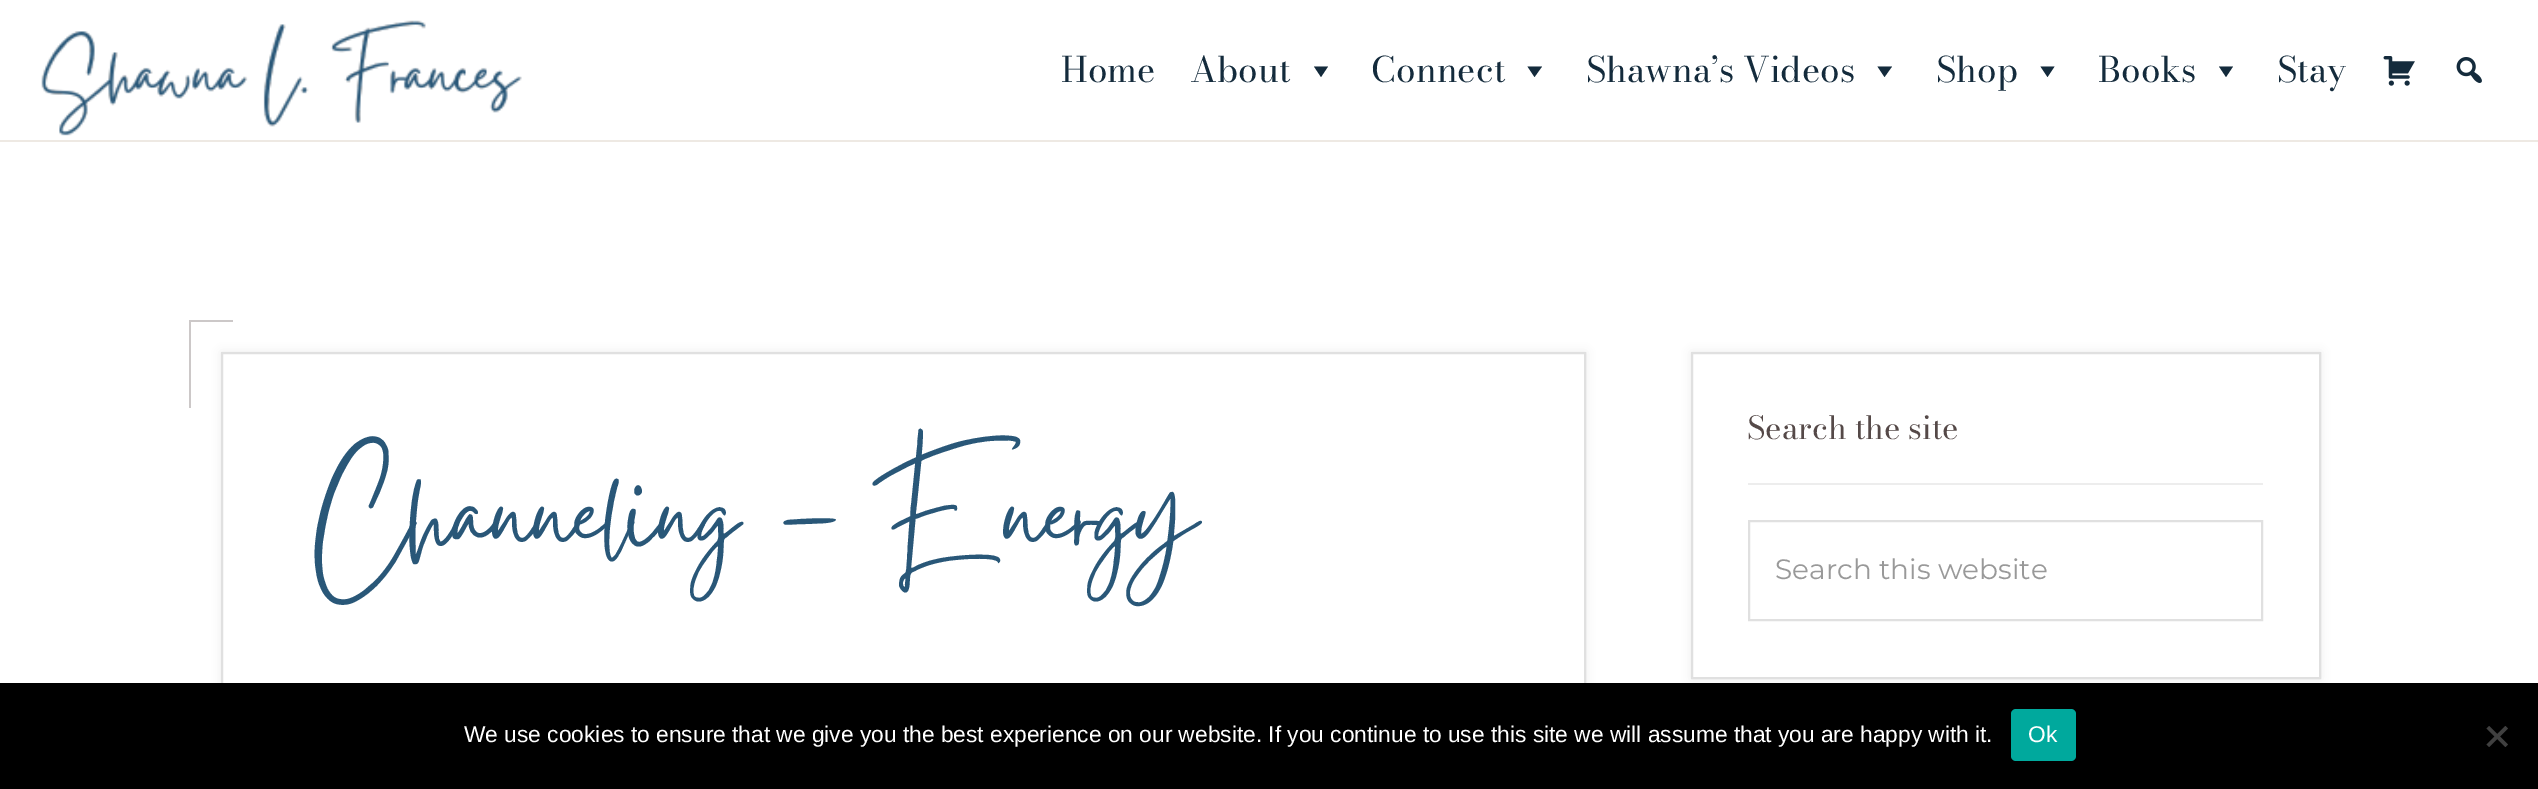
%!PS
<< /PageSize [2538 789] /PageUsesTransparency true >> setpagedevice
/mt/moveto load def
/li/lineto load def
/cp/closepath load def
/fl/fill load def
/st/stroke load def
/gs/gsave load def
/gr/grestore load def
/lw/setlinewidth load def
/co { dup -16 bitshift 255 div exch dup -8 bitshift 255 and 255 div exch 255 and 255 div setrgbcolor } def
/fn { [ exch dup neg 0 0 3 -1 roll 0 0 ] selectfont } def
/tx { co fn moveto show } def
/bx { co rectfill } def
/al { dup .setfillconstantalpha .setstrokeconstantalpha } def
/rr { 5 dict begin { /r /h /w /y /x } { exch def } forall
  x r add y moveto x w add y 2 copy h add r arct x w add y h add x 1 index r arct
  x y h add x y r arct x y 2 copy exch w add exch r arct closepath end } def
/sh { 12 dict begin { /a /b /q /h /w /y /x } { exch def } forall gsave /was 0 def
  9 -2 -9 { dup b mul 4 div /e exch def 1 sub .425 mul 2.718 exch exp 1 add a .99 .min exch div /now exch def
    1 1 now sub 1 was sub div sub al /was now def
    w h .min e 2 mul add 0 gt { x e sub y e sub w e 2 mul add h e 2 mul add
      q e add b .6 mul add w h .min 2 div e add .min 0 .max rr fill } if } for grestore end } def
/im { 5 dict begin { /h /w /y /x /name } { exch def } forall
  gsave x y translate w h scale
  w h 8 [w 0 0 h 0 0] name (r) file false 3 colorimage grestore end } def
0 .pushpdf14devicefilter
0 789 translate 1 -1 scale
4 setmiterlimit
0 0 2538 789 16#FFFFFF bx
0 140 2538 2 16#EEE9E3 bx
(media/1.raw) 41 20 481 116 im
16#142B3C co
1328 66.5 mt 1321 77 li 1314 66.5 li cp fl
1542 66.5 mt 1534.5 77 li 1527.5 66.5 li cp fl
1892 66.5 mt 1884.5 77 li 1877.5 66.5 li cp fl
2054.5 66.5 mt 2047.5 77 li 2040.5 66.5 li cp fl
2233 66.5 mt 2226 77 li 2219 66.5 li cp fl
(media/2.raw) 2383 56 32 30 im
(media/3.raw) 2456 57 26 26 im
16#000000 co
221 352 1365 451 0 4.5 .07 sh
223 354 1361 329 16#FFFFFF bx
16#E0E0E0 co
2 lw
222 353 1363 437 rectstroke
189 320 44 2 16#CCC8C8 bx
189 320 2 88 16#CCC8C8 bx
16#000000 co
1691 352 630 327 0 4.5 .07 sh
16#FFFFFF co
1692 353 mt 2320 353 li 2320 678 li 1692 678 li cp gs fl gr
16#E0E0E0 co
st
1748 483 515 2 16#EDEDED bx
16#E0E0E0 co
1749 521 513 99 rectstroke
0 683 2538 106 16#000000 bx
16#00A99D co
2011 709 65 52 5 rr fl
16#404040 co
2505.5 726 mt 2508 728.5 li 2489 747 li 2486.5 744.5 li cp fl
2486.5 728.5 mt 2489 726 li 2508 744.5 li 2505.5 747 li cp fl
(Home) 1061 82 /BodoniModa-Regular 35 16#142B3C tx
(About) 1190 82 /BodoniModa-Regular 35 16#142B3C tx
(Connect) 1371 82 /BodoniModa-Regular 35 16#142B3C tx
(Shawna’s Videos) 1586 82 /BodoniModa-Regular 35 16#142B3C tx
(Shop) 1936 82 /BodoniModa-Regular 35 16#142B3C tx
(Books) 2098 82 /BodoniModa-Regular 35 16#142B3C tx
(Stay) 2277 82 /BodoniModa-Regular 35 16#142B3C tx
/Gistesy-Regular 140 fn
16#295778 co
316 546 mt -.9 0 (Channeling – Energy) ashow
(Search the site) 1747 439 /BodoniModa-Regular 31.5 16#554948 tx
(Search this website) 1775 579 /Montserrat-Regular 28 16#999999 tx
(We use cookies to ensure that we give you the best experience on our website. If you continue to use this site we will assume that you are happy with it.) 464 742 /LiberationSans-Regular 22.75 16#FFFFFF tx
(Ok) 2028 742 /LiberationSans-Regular 22.75 16#FFFFFF tx
.poppdf14devicefilter showpage
